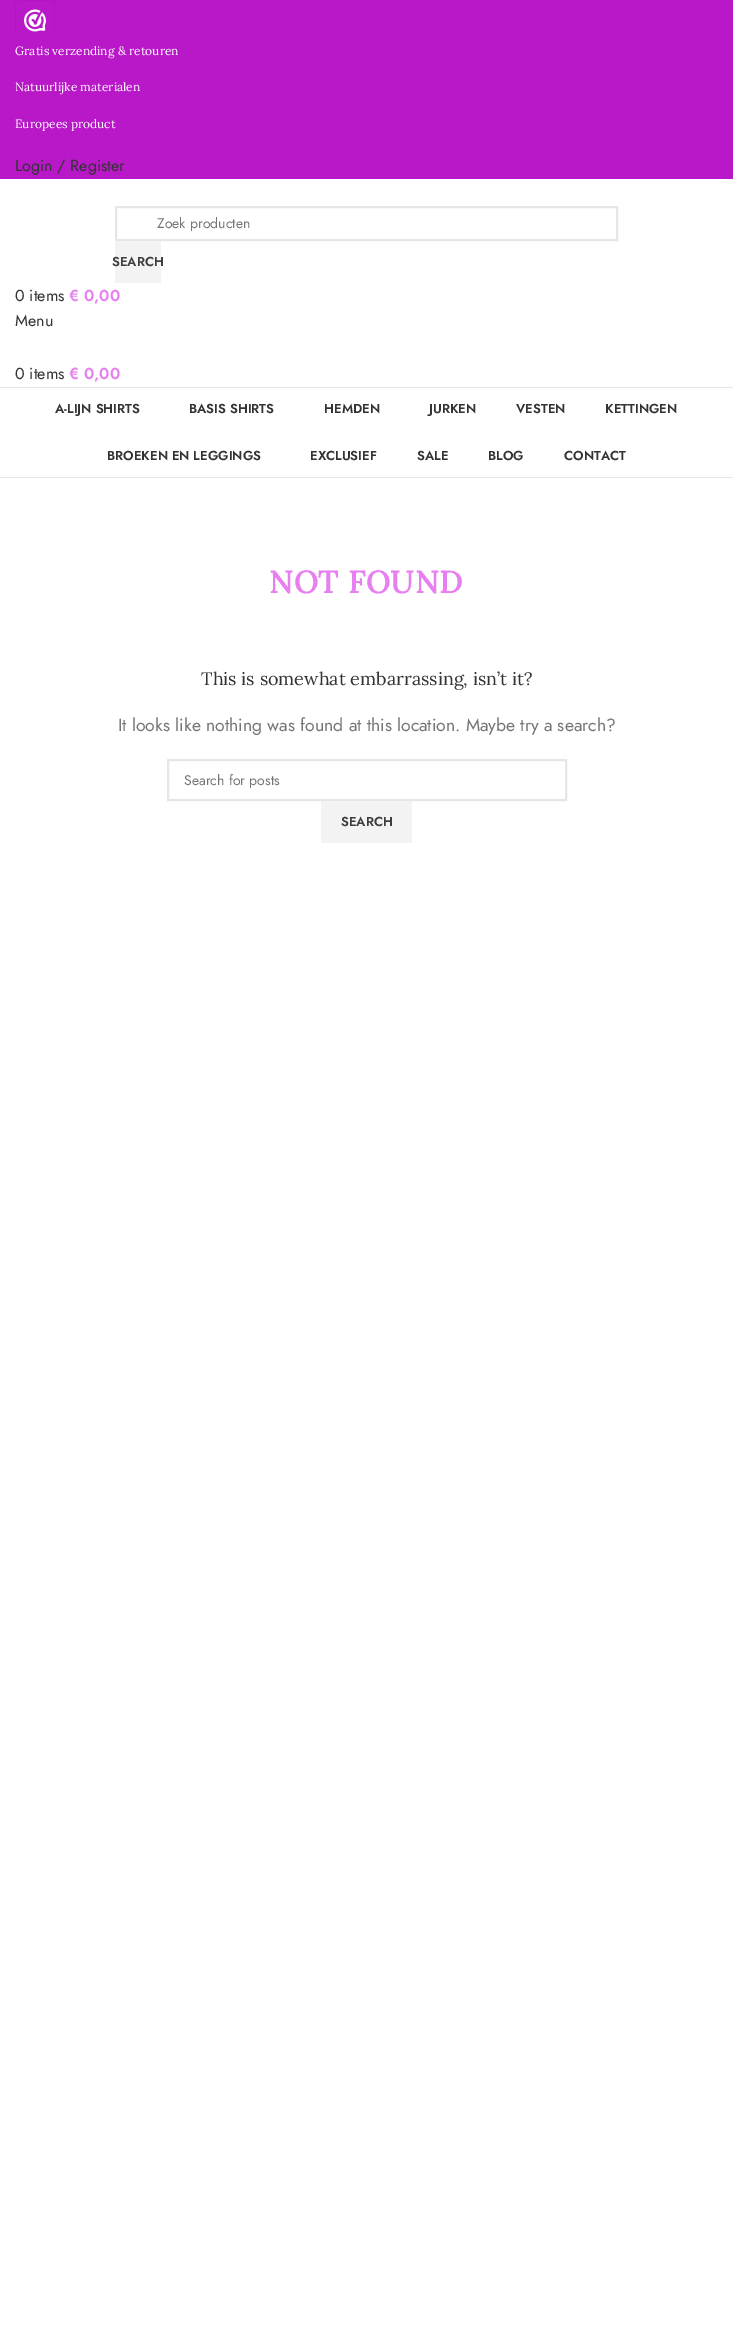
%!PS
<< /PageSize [733 2344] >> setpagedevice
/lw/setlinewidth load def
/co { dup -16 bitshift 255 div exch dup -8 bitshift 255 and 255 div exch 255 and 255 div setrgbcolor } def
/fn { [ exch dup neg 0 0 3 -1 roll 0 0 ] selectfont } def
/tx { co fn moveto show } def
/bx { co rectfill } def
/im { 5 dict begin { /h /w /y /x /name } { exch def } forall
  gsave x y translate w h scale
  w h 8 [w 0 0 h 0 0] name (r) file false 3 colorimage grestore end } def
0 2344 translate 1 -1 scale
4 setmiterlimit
0 0 733 2344 16#FFFFFF bx
0 0 733 179 16#B918C8 bx
(media/1.raw) 15 0 40 35 im
0 387 733 1 16#E6E6E6 bx
2 lw
116 207 501 33 rectstroke
115 241 46 42 16#F3F3F3 bx
0 477 733 1 16#E6E6E6 bx
168 760 398 40 rectstroke
321 801 91 42 16#F3F3F3 bx
(Gratis verzending & retouren) 15 55 /Lora-Regular 12 16#FFFFFF tx
(Natuurlijke materialen) 15 91 /Lora-Regular 12 16#FFFFFF tx
(Europees product) 15 128 /Lora-Regular 12 16#FFFFFF tx
(Login / Register) 15 171 /Jost-Regular 16 16#333333 tx
(Zoek producten) 157 228 /Jost-Regular 14 16#767676 tx
(SEARCH) 112 266 /Jost-SemiBold 13 16#3E3E3E tx
(0 items) 15 301 /Jost-Regular 16 16#333333 tx
(€ 0,00) 69 301 /Jost-SemiBold 16 16#E77FF0 tx
(Menu) 15 326 /Jost-Regular 16 16#333333 tx
(0 items) 15 379 /Jost-Regular 16 16#333333 tx
(€ 0,00) 69 379 /Jost-SemiBold 16 16#E77FF0 tx
(A-LIJN SHIRTS) 55 413 /Jost-SemiBold 13 16#333333 tx
(BASIS SHIRTS) 189 413 /Jost-SemiBold 13 16#333333 tx
(HEMDEN) 324 413 /Jost-SemiBold 13 16#333333 tx
(JURKEN) 429 413 /Jost-SemiBold 13 16#333333 tx
(VESTEN) 516 413 /Jost-SemiBold 13 16#333333 tx
(KETTINGEN) 605 413 /Jost-SemiBold 13 16#333333 tx
(BROEKEN EN LEGGINGS) 107 460 /Jost-SemiBold 13 16#333333 tx
(EXCLUSIEF) 310 460 /Jost-SemiBold 13 16#333333 tx
(SALE) 417 460 /Jost-SemiBold 13 16#333333 tx
(BLOG) 488 460 /Jost-SemiBold 13 16#333333 tx
(CONTACT) 564 460 /Jost-SemiBold 13 16#333333 tx
(NOT FOUND) 269 593 /Lora-SemiBold 32 16#E77FF0 tx
(This is somewhat embarrassing, isn’t it?) 201 685 /Lora-Regular 18 16#333333 tx
(It looks like nothing was found at this location. Maybe try a search?) 118 731 /Jost-Regular 17.6 16#767676 tx
(Search for posts) 184 785 /Jost-Regular 14 16#767676 tx
(SEARCH) 341 826 /Jost-SemiBold 13 16#3E3E3E tx
showpage
